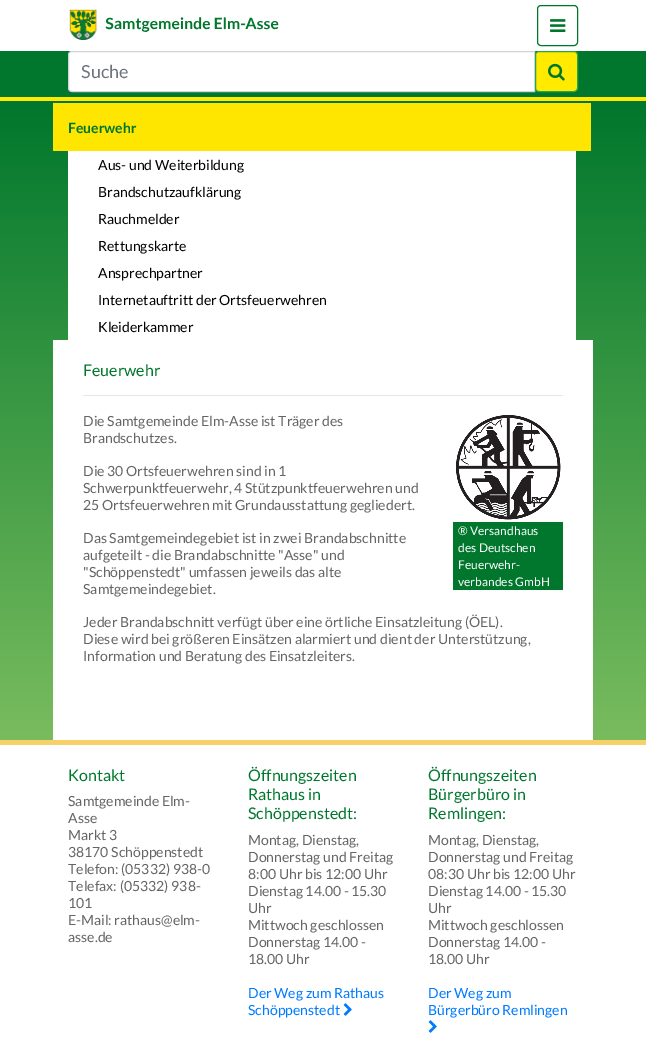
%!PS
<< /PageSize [646 1056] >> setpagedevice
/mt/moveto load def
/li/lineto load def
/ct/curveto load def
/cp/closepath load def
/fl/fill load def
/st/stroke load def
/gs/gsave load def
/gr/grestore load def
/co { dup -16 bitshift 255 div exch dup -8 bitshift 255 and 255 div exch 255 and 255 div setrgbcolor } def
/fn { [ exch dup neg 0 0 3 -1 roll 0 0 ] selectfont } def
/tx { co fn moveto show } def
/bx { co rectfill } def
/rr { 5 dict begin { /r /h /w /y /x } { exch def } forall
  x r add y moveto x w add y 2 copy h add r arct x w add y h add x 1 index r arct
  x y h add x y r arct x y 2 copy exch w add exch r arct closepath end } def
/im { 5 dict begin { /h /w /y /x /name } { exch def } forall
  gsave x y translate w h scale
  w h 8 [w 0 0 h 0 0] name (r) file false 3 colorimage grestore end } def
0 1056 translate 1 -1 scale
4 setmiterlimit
0 0 646 1056 16#FFFFFF bx
(media/1.raw) 69 9 210 31 im
16#00772D co
537.5 5.5 40 40 3.5 rr st
(media/2.raw) 550 19 16 13 im
0 51 646 46 16#00772D bx
0 97 646 4 16#FFEA00 bx
16#FFFFFF co
72 51.5 mt 534.5 51.5 li 534.5 91.5 li 72 91.5 li 70 91.5 68.5 90 68.5 88 ct 68.5 55 li 68.5 53 70 51.5 72 51.5 ct cp gs fl gr
16#CED4DA co
st
16#FFEA00 co
535.5 51.5 42 40 3.5 rr gs fl gr
16#28A745 co
st
(media/3.raw) 548 63 17 18 im
gs 0 101 mt 646 101 li 646 740 li 0 740 li cp clip newpath
<< /ShadingType 2 /ColorSpace /DeviceRGB /Coords [323 101 323 740] /Extend [true true] /Function << /FunctionType 2 /Domain [0 1] /C0 [0 .467 .176] /C1 [.475 .737 .369] /N 1 >> >> shfill gr
0 740 646 5 16#F7D167 bx
53 103 538 48 16#FEE600 bx
68 151 508 189 16#FFFFFF bx
53 340 540 400 16#FFFFFF bx
83 395 480 1 16#E6E6E6 bx
(media/4.raw) 456 415 105 105 im
453 522 110 68 16#00772D bx
(media/5.raw) 343 1003 9 13 im
(media/5.raw) 428 1020 9 13 im
(Suche) 81 78 /Lato-Regular 18 16#6C757D tx
(Feuerwehr) 68 133 /Lato-Bold 14 16#00772D tx
(Aus- und Weiterbildung) 98 170 /Lato-Regular 14 16#000000 tx
(Brandschutzaufklärung) 98 197 /Lato-Regular 14 16#000000 tx
(Rauchmelder) 98 224 /Lato-Regular 14 16#000000 tx
(Rettungskarte) 98 251 /Lato-Regular 14 16#000000 tx
(Ansprechpartner) 98 278 /Lato-Regular 14 16#000000 tx
(Internetauftritt der Ortsfeuerwehren) 98 305 /Lato-Regular 14 16#000000 tx
(Kleiderkammer) 98 332 /Lato-Regular 14 16#000000 tx
(Feuerwehr) 83 376 /Lato-Regular 16 16#00772D tx
(Die Samtgemeinde Elm-Asse ist Träger des) 83 426 /Lato-Regular 14 16#656565 tx
(Brandschutzes.) 83 443 /Lato-Regular 14 16#656565 tx
(Die 30 Ortsfeuerwehren sind in 1) 83 476 /Lato-Regular 14 16#656565 tx
(Schwerpunktfeuerwehr, 4 Stützpunktfeuerwehren und) 83 493 /Lato-Regular 14 16#656565 tx
(25 Ortsfeuerwehren mit Grundausstattung gegliedert.) 83 510 /Lato-Regular 14 16#656565 tx
(Das Samtgemeindegebiet ist in zwei Brandabschnitte) 83 543 /Lato-Regular 14 16#656565 tx
(aufgeteilt - die Brandabschnitte "Asse" und) 83 560 /Lato-Regular 14 16#656565 tx
("Schöppenstedt" umfassen jeweils das alte) 83 577 /Lato-Regular 14 16#656565 tx
(Samtgemeindegebiet.) 83 594 /Lato-Regular 14 16#656565 tx
(Jeder Brandabschnitt verfügt über eine örtliche Einsatzleitung \(ÖEL\).) 83 627 /Lato-Regular 14 16#656565 tx
(Diese wird bei größeren Einsätzen alarmiert und dient der Unterstützung,) 83 644 /Lato-Regular 14 16#656565 tx
(Information und Beratung des Einsatzleiters.) 83 661 /Lato-Regular 14 16#656565 tx
(® Versandhaus) 458 535 /Lato-Regular 12 16#FFFFFF tx
(des Deutschen) 458 552 /Lato-Regular 12 16#FFFFFF tx
(Feuerwehr-) 458 569 /Lato-Regular 12 16#FFFFFF tx
(verbandes GmbH) 458 586 /Lato-Regular 12 16#FFFFFF tx
(Kontakt) 68 781 /Lato-Regular 16 16#00772D tx
(Samtgemeinde Elm-) 68 806 /Lato-Regular 14 16#656565 tx
(Asse) 68 823 /Lato-Regular 14 16#656565 tx
(Markt 3) 68 840 /Lato-Regular 14 16#656565 tx
(38170 Schöppenstedt) 68 857 /Lato-Regular 14 16#656565 tx
(Telefon: \(05332\) 938-0) 68 874 /Lato-Regular 14 16#656565 tx
(Telefax: \(05332\) 938-) 68 891 /Lato-Regular 14 16#656565 tx
(101) 68 908 /Lato-Regular 14 16#656565 tx
(E-Mail: rathaus@elm-) 68 925 /Lato-Regular 14 16#656565 tx
(asse.de) 68 942 /Lato-Regular 14 16#656565 tx
(Öffnungszeiten) 248 781 /Lato-Regular 16 16#00772D tx
(Rathaus in) 248 800 /Lato-Regular 16 16#00772D tx
(Schöppenstedt:) 248 819 /Lato-Regular 16 16#00772D tx
(Montag, Dienstag,) 248 845 /Lato-Regular 14 16#656565 tx
(Donnerstag und Freitag) 248 862 /Lato-Regular 14 16#656565 tx
(8:00 Uhr bis 12:00 Uhr) 248 879 /Lato-Regular 14 16#656565 tx
(Dienstag 14.00 - 15.30) 248 896 /Lato-Regular 14 16#656565 tx
(Uhr) 248 913 /Lato-Regular 14 16#656565 tx
(Mittwoch geschlossen) 248 930 /Lato-Regular 14 16#656565 tx
(Donnerstag 14.00 -) 248 947 /Lato-Regular 14 16#656565 tx
(18.00 Uhr) 248 964 /Lato-Regular 14 16#656565 tx
(Der Weg zum Rathaus) 248 998 /Lato-Regular 14 16#007BFF tx
(Schöppenstedt) 248 1015 /Lato-Regular 14 16#007BFF tx
(Öffnungszeiten) 428 781 /Lato-Regular 16 16#00772D tx
(Bürgerbüro in) 428 800 /Lato-Regular 16 16#00772D tx
(Remlingen:) 428 819 /Lato-Regular 16 16#00772D tx
(Montag, Dienstag,) 428 845 /Lato-Regular 14 16#656565 tx
(Donnerstag und Freitag) 428 862 /Lato-Regular 14 16#656565 tx
(08:30 Uhr bis 12:00 Uhr) 428 879 /Lato-Regular 14 16#656565 tx
(Dienstag 14.00 - 15.30) 428 896 /Lato-Regular 14 16#656565 tx
(Uhr) 428 913 /Lato-Regular 14 16#656565 tx
(Mittwoch geschlossen) 428 930 /Lato-Regular 14 16#656565 tx
(Donnerstag 14.00 -) 428 947 /Lato-Regular 14 16#656565 tx
(18.00 Uhr) 428 964 /Lato-Regular 14 16#656565 tx
(Der Weg zum) 428 998 /Lato-Regular 14 16#007BFF tx
(Bürgerbüro Remlingen) 428 1015 /Lato-Regular 14 16#007BFF tx
showpage
